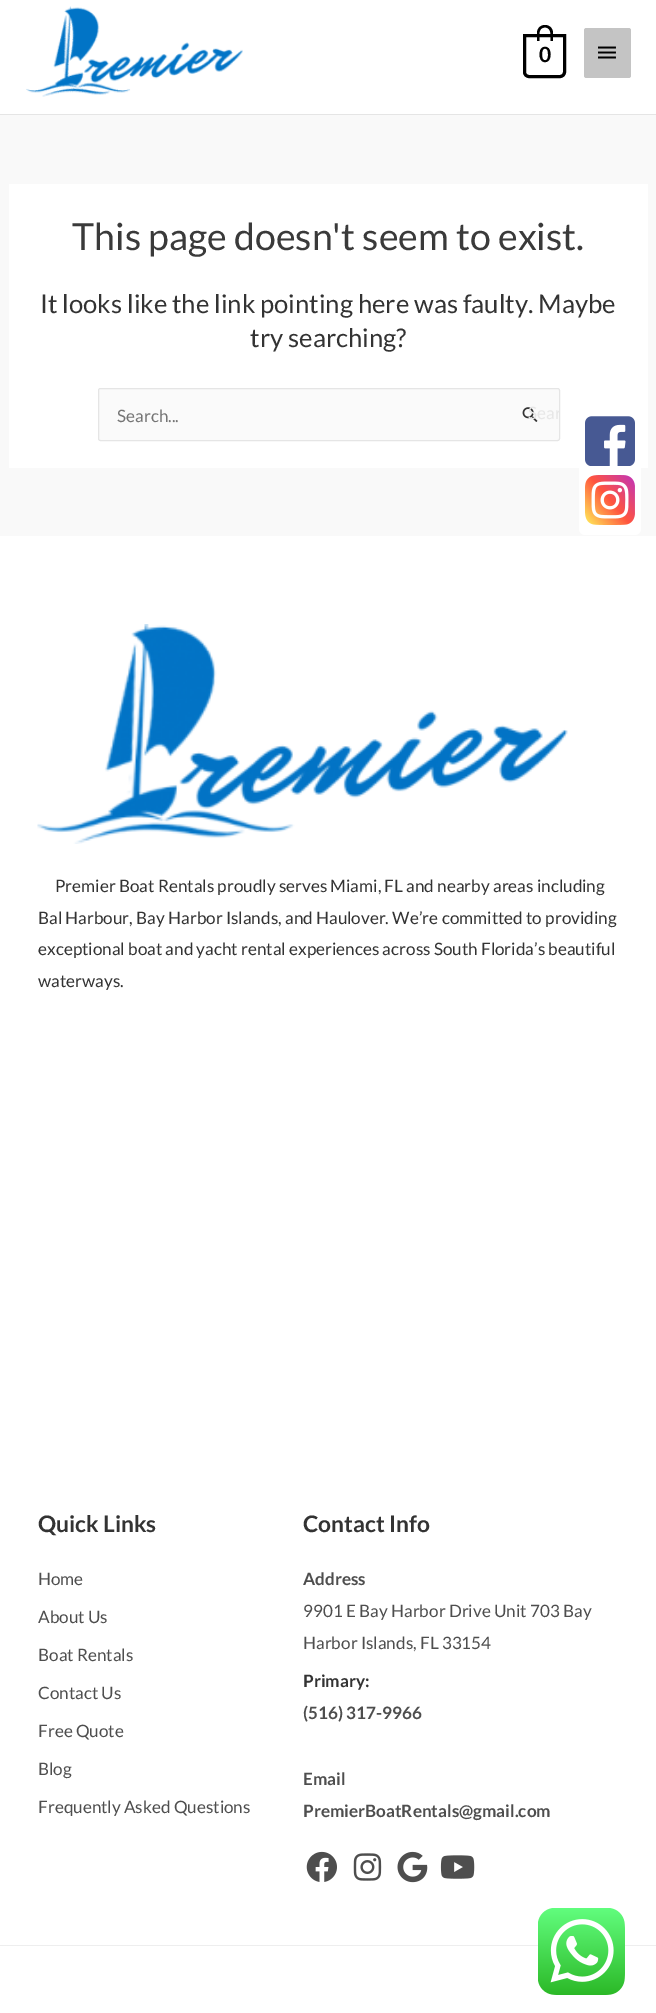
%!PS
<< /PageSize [656 2013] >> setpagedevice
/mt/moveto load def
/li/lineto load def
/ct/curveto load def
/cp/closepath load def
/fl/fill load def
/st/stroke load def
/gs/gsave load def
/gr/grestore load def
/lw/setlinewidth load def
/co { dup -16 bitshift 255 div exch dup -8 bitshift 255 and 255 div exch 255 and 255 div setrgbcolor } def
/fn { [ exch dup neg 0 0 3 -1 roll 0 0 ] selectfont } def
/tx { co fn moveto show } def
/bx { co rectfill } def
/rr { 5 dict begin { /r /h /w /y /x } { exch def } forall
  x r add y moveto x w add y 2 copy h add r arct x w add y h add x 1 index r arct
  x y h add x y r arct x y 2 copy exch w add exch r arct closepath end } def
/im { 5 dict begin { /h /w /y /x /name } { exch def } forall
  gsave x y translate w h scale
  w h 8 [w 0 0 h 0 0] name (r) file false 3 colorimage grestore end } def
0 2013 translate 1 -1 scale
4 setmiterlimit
0 0 656 2013 16#F9F9F9 bx
0 0 656 114 16#FFFFFF bx
0 114 656 1 16#E5E5E5 bx
(media/1.raw) 26 6 217 91 im
16#000000 co
3 lw
524.5 35.5 mt 564.5 35.5 li 564.5 72 li 564.5 74.5 562.5 76.5 560 76.5 ct 529 76.5 li 526.5 76.5 524.5 74.5 524.5 72 ct cp st
545 25 mt 549.5 25 553 28.5 553 33 ct 553 41 li 537 41 li 537 33 li 537 28.5 540.5 25 545 25 ct cp 545 27.5 mt 552 27.5 550.5 36.5 550.5 41 ct 539.5 41 li 539.5 36.5 537.5 27.5 545 27.5 ct cp eofill
16#C4C4C4 co
584 28 47 50 2.5 rr fl
(media/2.raw) 598 46 18 13 im
9 184 639 284 16#FFFFFF bx
16#FAFAFA co
98.5 388.5 461 52 2 rr gs fl gr
16#E5E5E5 co
1 lw
st
(media/3.raw) 522 407 16 15 im
0 536 656 1409 16#FFFFFF bx
579 406 62 129 6 rr fl
(media/4.raw) 585 416 50 50 im
(media/5.raw) 585 475 50 50 im
(media/6.raw) 37 624 531 220 im
(media/7.raw) 306 1851 31 31 im
(media/8.raw) 353 1853 29 28 im
(media/9.raw) 397 1851 31 32 im
(media/10.raw) 440 1855 35 24 im
0 1946 656 67 16#FFFFFF bx
0 1945 656 1 16#EEEEEE bx
(media/11.raw) 538 1908 87 87 im
(0) 539 62 /Lato-Bold 21 16#000000 tx
(This page doesn't seem to exist.) 72 250 /Lato-Regular 37.5 16#3A3A3A tx
(It looks like the link pointing here was faulty. Maybe) 40 313 /Lato-Regular 25.65 16#333333 tx
(try searching?) 250 347 /Lato-Regular 25.65 16#333333 tx
gs
504 388 56 50 2.5 rr clip newpath
(Sear) 528 419 /Lato-Regular 17.1 16#E7E7E7 tx
gr
(Search...) 117 422 /Lato-Regular 17.1 16#757575 tx
(Premier Boat Rentals proudly serves Miami, FL and nearby areas including) 55 892 /Lato-Regular 17.1 16#333333 tx
(Bal Harbour, Bay Harbor Islands, and Haulover. We’re committed to providing) 38 924 /Lato-Regular 17.1 16#333333 tx
(exceptional boat and yacht rental experiences across South Florida’s beautiful) 38 955 /Lato-Regular 17.1 16#333333 tx
(waterways.) 38 987 /Lato-Regular 17.1 16#333333 tx
(Quick Links) 38 1532 /Lato-Bold 22.75 16#333333 tx
(Home) 38 1585 /Lato-Regular 17.1 16#4E4E4E tx
(About Us) 38 1623 /Lato-Regular 17.1 16#4E4E4E tx
(Boat Rentals) 38 1661 /Lato-Regular 17.1 16#4E4E4E tx
(Contact Us) 38 1699 /Lato-Regular 17.1 16#4E4E4E tx
(Free Quote) 38 1737 /Lato-Regular 17.1 16#4E4E4E tx
(Blog) 38 1775 /Lato-Regular 17.1 16#4E4E4E tx
(Frequently Asked Questions) 38 1813 /Lato-Regular 17.1 16#4E4E4E tx
(Contact Info) 303 1532 /Lato-Bold 22.75 16#333333 tx
(Address) 303 1585 /Lato-Bold 17.1 16#4E4E4E tx
(9901 E Bay Harbor Drive Unit 703 Bay) 303 1617 /Lato-Regular 17.1 16#4E4E4E tx
(Harbor Islands, FL 33154) 303 1649 /Lato-Regular 17.1 16#4E4E4E tx
(Primary:) 303 1687 /Lato-Bold 17.1 16#333333 tx
(\(516\) 317-9966) 303 1719 /Lato-Bold 17.1 16#4E4E4E tx
(Email) 303 1785 /Lato-Bold 17.1 16#4E4E4E tx
(PremierBoatRentals@gmail.com) 303 1817 /Lato-Bold 17.1 16#4E4E4E tx
showpage
